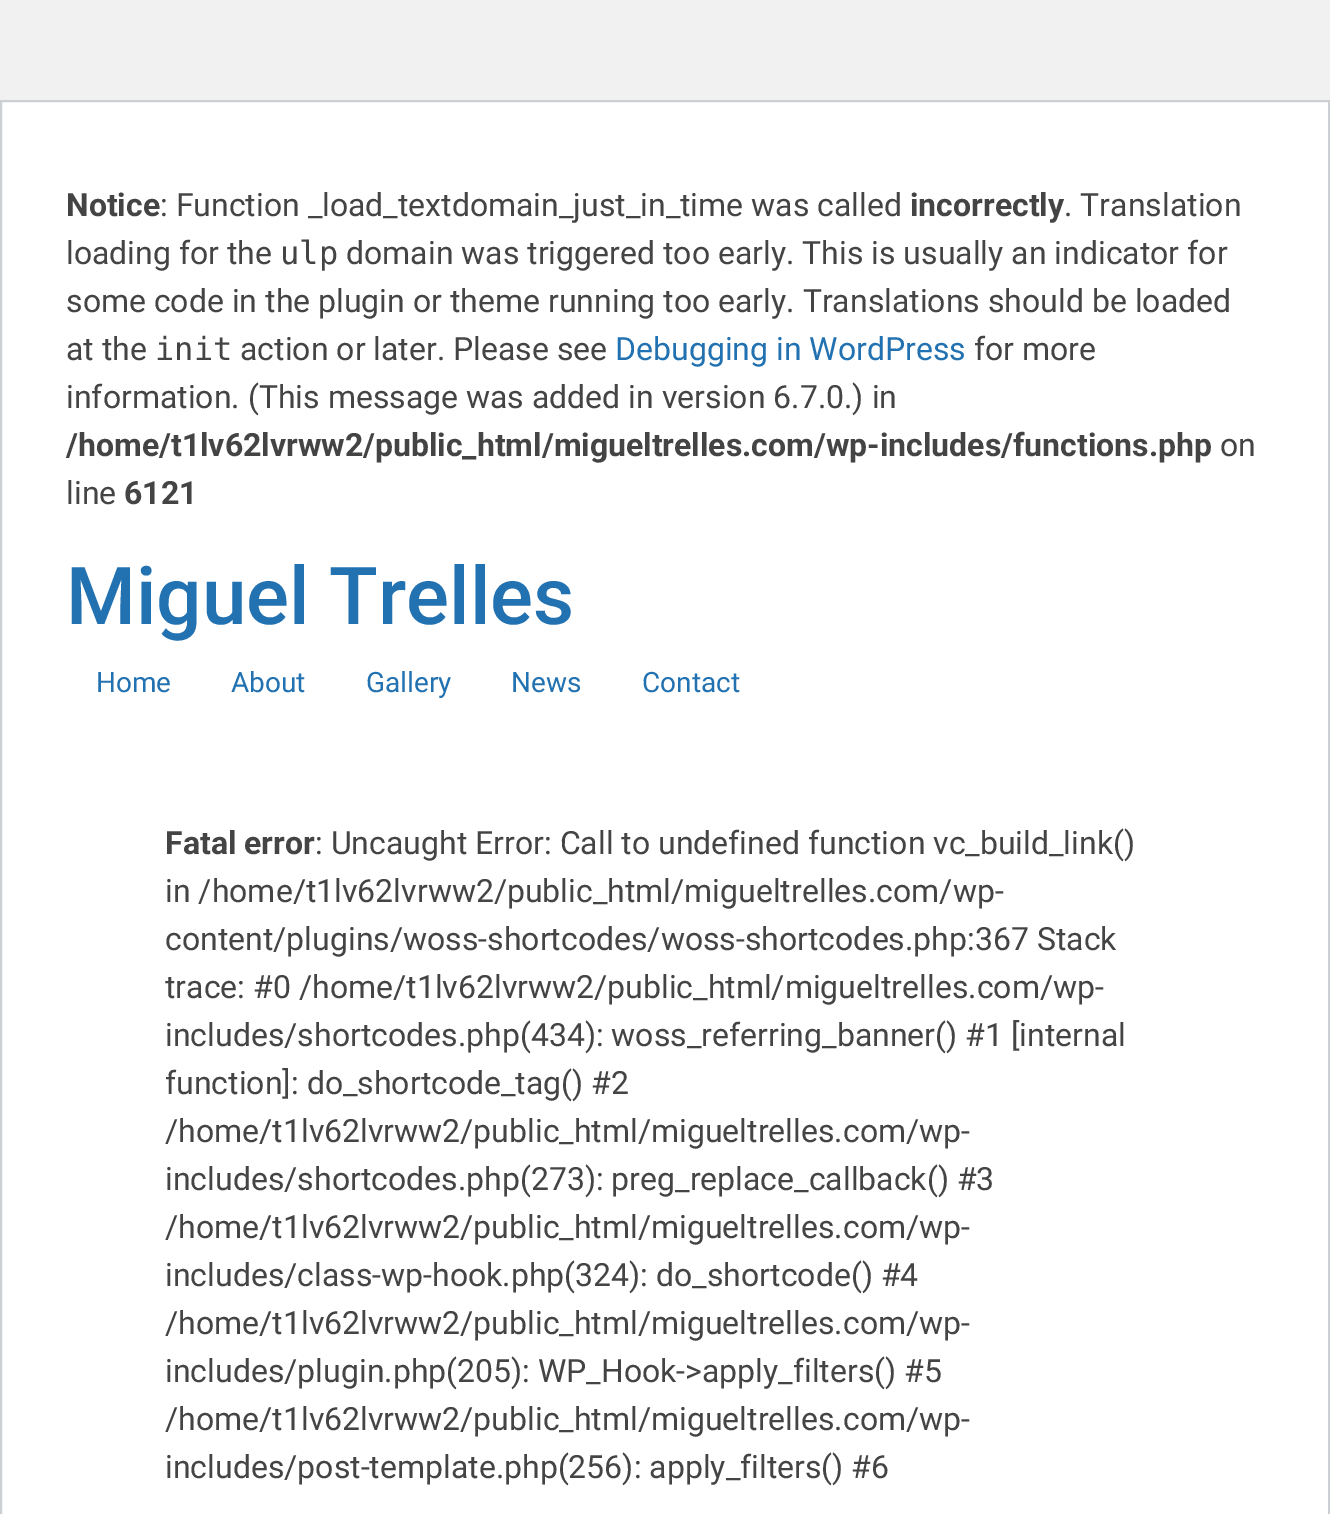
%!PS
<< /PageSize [1330 1514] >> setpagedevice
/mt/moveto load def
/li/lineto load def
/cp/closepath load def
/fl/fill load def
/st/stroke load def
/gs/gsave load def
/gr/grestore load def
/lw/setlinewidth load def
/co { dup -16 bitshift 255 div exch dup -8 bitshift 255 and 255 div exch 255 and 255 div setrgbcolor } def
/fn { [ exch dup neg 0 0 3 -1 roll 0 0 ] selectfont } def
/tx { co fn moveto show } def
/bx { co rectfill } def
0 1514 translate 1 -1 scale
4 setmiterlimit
0 0 1330 1514 16#F1F1F1 bx
16#FFFFFF co
1 101 mt 1329 101 li 1329 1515 li 1 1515 li cp gs fl gr
16#CCD0D4 co
2 lw
st
(Notice) 66 216 /Roboto-Bold 32 16#444444 tx
(: Function _load_textdomain_just_in_time was called) 160 216 /Roboto-Regular 32 16#444444 tx
(incorrectly) 910 216 /Roboto-Bold 32 16#444444 tx
(. Translation) 1064 216 /Roboto-Regular 32 16#444444 tx
(loading for the) 66 264 /Roboto-Regular 32 16#444444 tx
(ulp) 280 264 /DejaVuSansMono-Regular 32 16#444444 tx
(domain was triggered too early. This is usually an indicator for) 346 264 /Roboto-Regular 32 16#444444 tx
(some code in the plugin or theme running too early. Translations should be loaded) 66 312 /Roboto-Regular 32 16#444444 tx
(at the) 66 360 /Roboto-Regular 32 16#444444 tx
(init) 155 360 /DejaVuSansMono-Regular 32 16#444444 tx
(action or later. Please see) 240 360 /Roboto-Regular 32 16#444444 tx
(Debugging in WordPress) 615 360 /Roboto-Regular 32 16#2271B1 tx
(for more) 974 360 /Roboto-Regular 32 16#444444 tx
(information. \(This message was added in version 6.7.0.\) in) 66 408 /Roboto-Regular 32 16#444444 tx
(/home/t1lv62lvrww2/public_html/migueltrelles.com/wp-includes/functions.php) 66 456 /Roboto-Bold 32 16#444444 tx
(on) 1220 456 /Roboto-Regular 32 16#444444 tx
(line) 66 504 /Roboto-Regular 32 16#444444 tx
(6121) 124 504 /Roboto-Bold 32 16#444444 tx
(Miguel Trelles) 66 624 /Roboto-Medium 80 16#2271B1 tx
(Home) 96 692 /Roboto-Regular 28 16#2271B1 tx
(About) 231 692 /Roboto-Regular 28 16#2271B1 tx
(Gallery) 366 692 /Roboto-Regular 28 16#2271B1 tx
(News) 511 692 /Roboto-Regular 28 16#2271B1 tx
(Contact) 642 692 /Roboto-Regular 28 16#2271B1 tx
(Fatal error) 165 854 /Roboto-Bold 32 16#444444 tx
(: Uncaught Error: Call to undefined function vc_build_link\(\)) 315 854 /Roboto-Regular 32 16#444444 tx
(in /home/t1lv62lvrww2/public_html/migueltrelles.com/wp-) 165 902 /Roboto-Regular 32 16#444444 tx
(content/plugins/woss-shortcodes/woss-shortcodes.php:367 Stack) 165 950 /Roboto-Regular 32 16#444444 tx
(trace: #0 /home/t1lv62lvrww2/public_html/migueltrelles.com/wp-) 165 998 /Roboto-Regular 32 16#444444 tx
(includes/shortcodes.php\(434\): woss_referring_banner\(\) #1 [internal) 165 1046 /Roboto-Regular 32 16#444444 tx
(function]: do_shortcode_tag\(\) #2) 165 1094 /Roboto-Regular 32 16#444444 tx
(/home/t1lv62lvrww2/public_html/migueltrelles.com/wp-) 165 1142 /Roboto-Regular 32 16#444444 tx
(includes/shortcodes.php\(273\): preg_replace_callback\(\) #3) 165 1190 /Roboto-Regular 32 16#444444 tx
(/home/t1lv62lvrww2/public_html/migueltrelles.com/wp-) 165 1238 /Roboto-Regular 32 16#444444 tx
(includes/class-wp-hook.php\(324\): do_shortcode\(\) #4) 165 1286 /Roboto-Regular 32 16#444444 tx
(/home/t1lv62lvrww2/public_html/migueltrelles.com/wp-) 165 1334 /Roboto-Regular 32 16#444444 tx
(includes/plugin.php\(205\): WP_Hook->apply_filters\(\) #5) 165 1382 /Roboto-Regular 32 16#444444 tx
(/home/t1lv62lvrww2/public_html/migueltrelles.com/wp-) 165 1430 /Roboto-Regular 32 16#444444 tx
(includes/post-template.php\(256\): apply_filters\(\) #6) 165 1478 /Roboto-Regular 32 16#444444 tx
showpage
